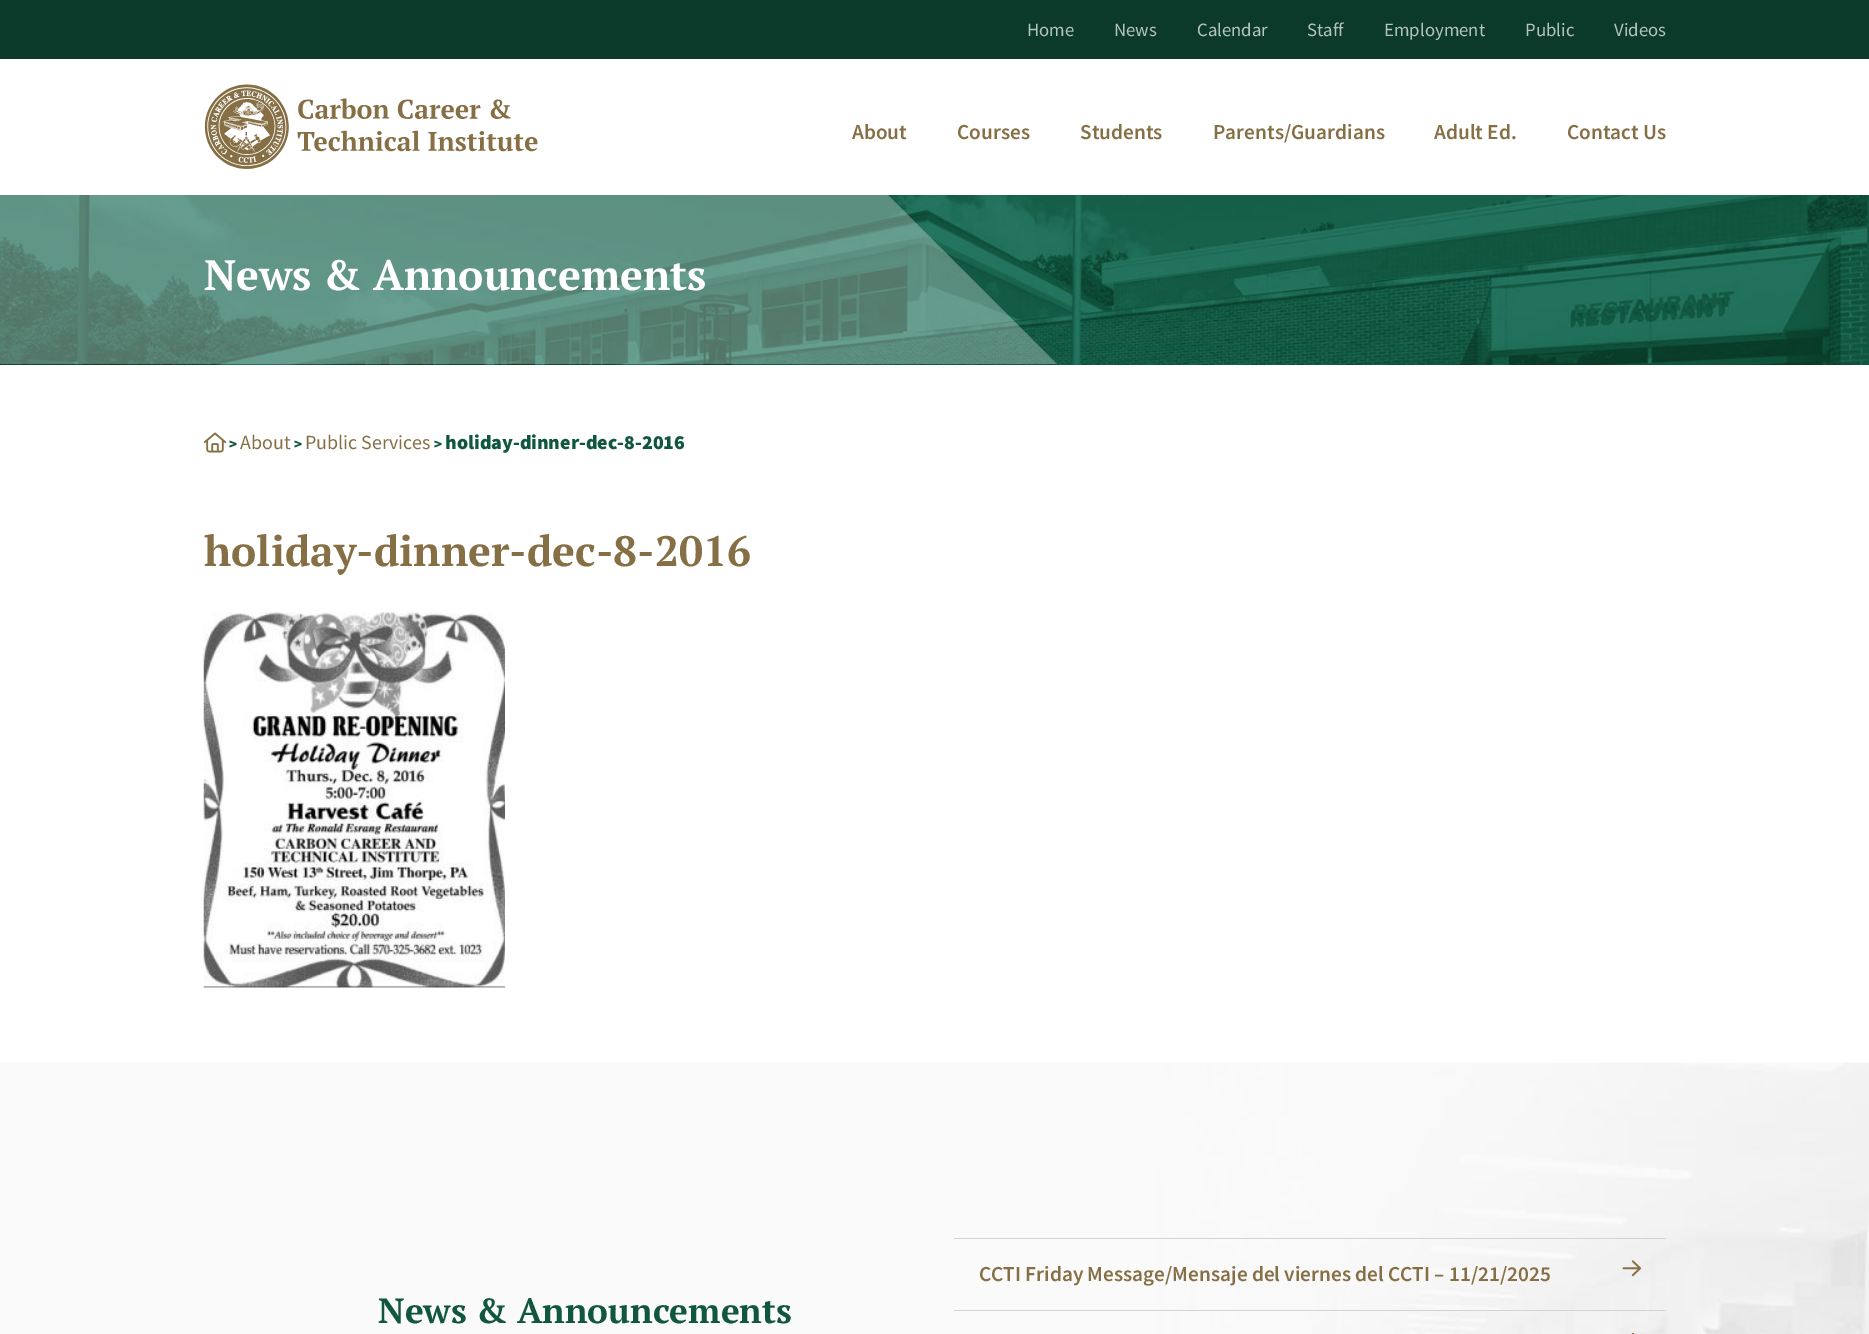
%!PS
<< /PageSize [1869 1334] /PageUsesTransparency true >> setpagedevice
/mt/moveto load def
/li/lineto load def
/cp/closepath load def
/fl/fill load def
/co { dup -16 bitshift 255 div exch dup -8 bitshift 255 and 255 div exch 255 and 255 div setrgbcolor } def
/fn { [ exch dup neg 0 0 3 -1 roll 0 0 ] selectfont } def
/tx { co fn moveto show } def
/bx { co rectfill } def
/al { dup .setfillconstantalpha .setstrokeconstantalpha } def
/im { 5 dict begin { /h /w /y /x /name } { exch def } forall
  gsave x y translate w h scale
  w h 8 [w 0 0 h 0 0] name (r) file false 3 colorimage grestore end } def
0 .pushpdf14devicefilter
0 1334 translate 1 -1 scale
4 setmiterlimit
0 0 1869 1334 16#FFFFFF bx
0 0 1869 59 16#0B392A bx
(media/1.raw) 204 84 334 85 im
(media/2.raw) 0 195 1869 170 im
0.3 al
16#FFFFFF co
-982 195 mt 888 195 li 1057 364 li -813 364 li cp fl
1 al
(media/3.raw) 203 432 24 21 im
(media/4.raw) 203 612 302 376 im
(media/5.raw) 0 1062 1869 272 im
954 1238 712 1 16#D3D3D3 bx
(media/6.raw) 1622 1260 20 17 im
954 1310 712 1 16#D3D3D3 bx
(media/7.raw) 1631 1332 4 2 im
(Home) 1027 36 /SourceSansPro-Regular 18.75 16#B6C4BF tx
(News) 1114 36 /SourceSansPro-Regular 18.75 16#B6C4BF tx
(Calendar) 1197 36 /SourceSansPro-Regular 18.75 16#B6C4BF tx
(Staff) 1307 36 /SourceSansPro-Regular 18.75 16#B6C4BF tx
(Employment) 1384 36 /SourceSansPro-Regular 18.75 16#B6C4BF tx
(Public) 1525 36 /SourceSansPro-Regular 18.75 16#B6C4BF tx
(Videos) 1614 36 /SourceSansPro-Regular 18.75 16#B6C4BF tx
(About) 852 139 /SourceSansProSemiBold-SemiBold 21.25 16#866F45 tx
(Courses) 957 139 /SourceSansProSemiBold-SemiBold 21.25 16#866F45 tx
(Students) 1080 139 /SourceSansProSemiBold-SemiBold 21.25 16#866F45 tx
(Parents/Guardians) 1213 139 /SourceSansProSemiBold-SemiBold 21.25 16#866F45 tx
(Adult Ed.) 1434 139 /SourceSansProSemiBold-SemiBold 21.25 16#866F45 tx
(Contact Us) 1567 139 /SourceSansProSemiBold-SemiBold 21.25 16#866F45 tx
(News & Announcements) 204 290 /PTSerif-Bold 42.5 16#FFFFFF tx
(>) 229 449 /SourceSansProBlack-Black 15 16#115740 tx
(About) 240 449 /SourceSansPro-Regular 20 16#866F45 tx
(>) 294 449 /SourceSansProBlack-Black 15 16#115740 tx
(Public Services) 305 449 /SourceSansPro-Regular 20 16#866F45 tx
(>) 434 449 /SourceSansProBlack-Black 15 16#115740 tx
(holiday-dinner-dec-8-2016) 445 449 /SourceSansProBlack-Black 20 16#115740 tx
(holiday-dinner-dec-8-2016) 204 566 /PTSerif-Bold 42.5 16#866F45 tx
(CCTI Friday Message/Mensaje del viernes del CCTI – 11/21/2025) 979 1281 /SourceSansProSemiBold-SemiBold 21.25 16#866F45 tx
(News & Announcements) 378 1323 /PTSerif-Bold 35 16#115740 tx
.poppdf14devicefilter showpage
